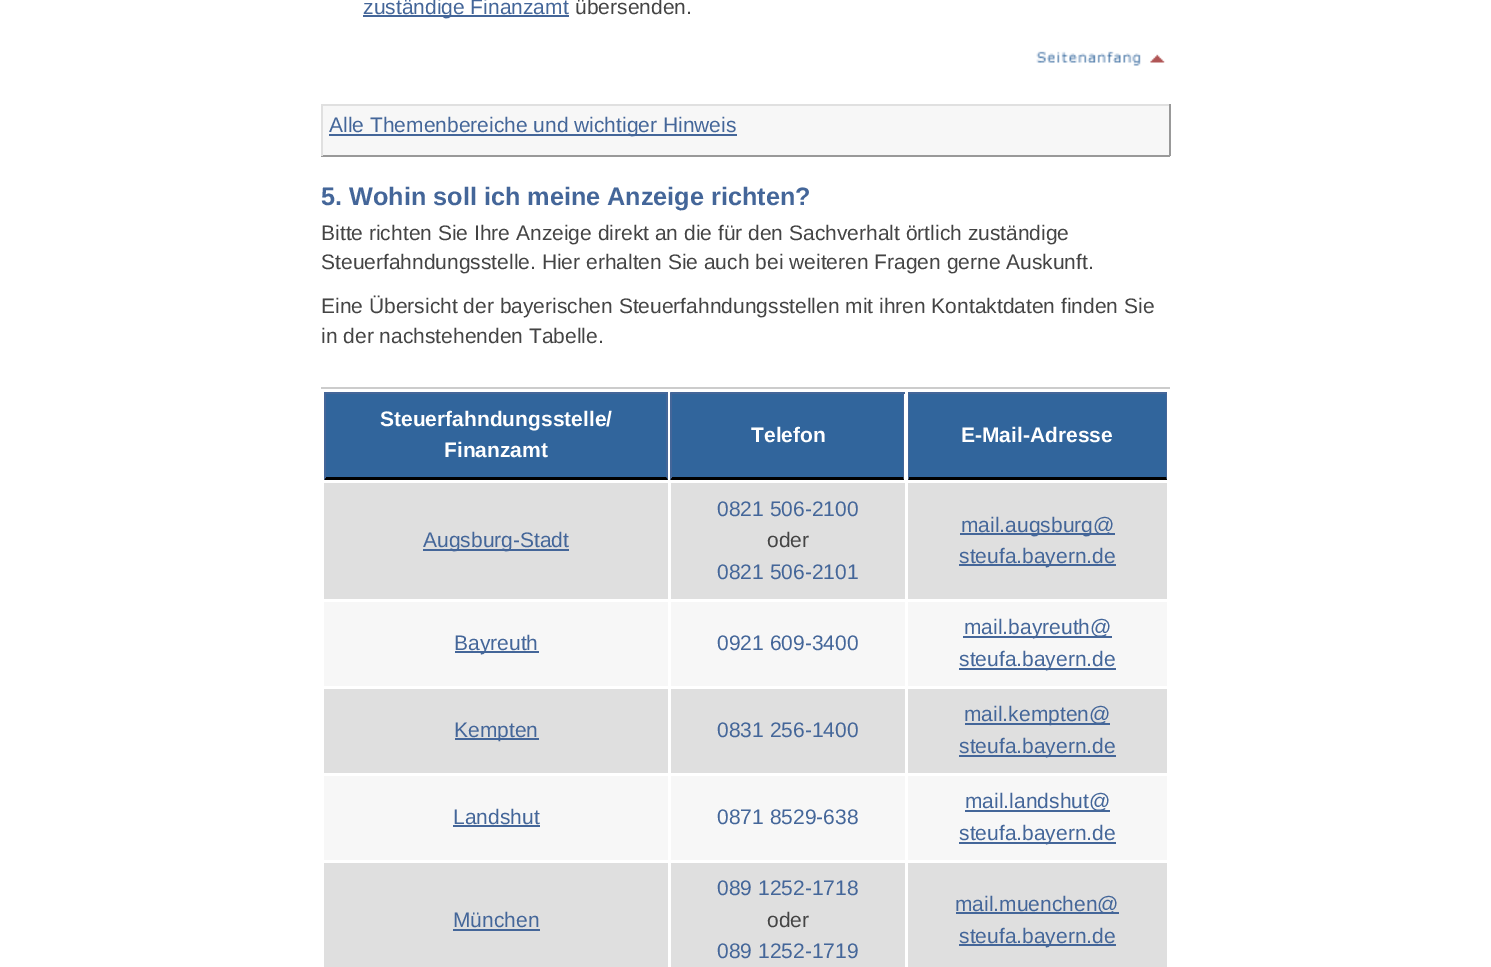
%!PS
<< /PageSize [1491 967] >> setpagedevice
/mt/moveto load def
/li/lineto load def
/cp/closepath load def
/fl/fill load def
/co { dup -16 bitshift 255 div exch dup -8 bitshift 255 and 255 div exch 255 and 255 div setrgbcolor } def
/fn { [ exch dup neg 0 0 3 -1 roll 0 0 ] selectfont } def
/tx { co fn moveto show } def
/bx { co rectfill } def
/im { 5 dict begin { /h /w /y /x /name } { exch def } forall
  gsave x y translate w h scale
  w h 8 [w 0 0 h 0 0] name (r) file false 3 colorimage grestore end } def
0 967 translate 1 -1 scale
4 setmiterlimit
0 0 1491 967 16#FFFFFF bx
363 15 206 2 16#446699 bx
(media/1.raw) 1036 51 129 15 im
323 106 846 49 16#F7F7F7 bx
321 104 849 2 16#E0E0E0 bx
1169 104 2 52 16#999999 bx
321 155 849 2 16#999999 bx
321 104 2 52 16#E0E0E0 bx
329 134 408 2 16#446699 bx
321 387 849 2 16#CCCCCC bx
326 394 340 83 16#31659C bx
324 392 344 2 16#446699 bx
668 392 mt 668 480 li 666 477 li 666 393 li cp fl
16#000000 co
668 480 mt 324 480 li 326 477 li 666 477 li cp fl
16#446699 co
324 480 mt 324 392 li 326 393 li 326 477 li cp fl
672 394 231 83 16#31659C bx
671 392 234 2 16#446699 bx
904 392 mt 904 480 li 903 477 li 903 393 li cp fl
16#000000 co
904 480 mt 670 480 li 672 477 li 903 477 li cp fl
16#446699 co
670 480 mt 670 392 li 672 393 li 672 477 li cp fl
909 394 257 83 16#31659C bx
908 392 259 2 16#446699 bx
1167 392 mt 1167 480 li 1166 477 li 1166 393 li cp fl
16#000000 co
1167 480 mt 908 480 li 909 477 li 1166 477 li cp fl
16#446699 co
908 480 mt 908 392 li 909 393 li 909 477 li cp fl
324 483 344 116 16#DFDFDF bx
423 549 146 2 16#446699 bx
671 483 234 116 16#DFDFDF bx
908 483 259 116 16#DFDFDF bx
960 533 155 2 16#446699 bx
959 564 157 2 16#446699 bx
324 602 344 84 16#F7F7F7 bx
455 651 84 2 16#446699 bx
671 602 234 84 16#F7F7F7 bx
908 602 259 84 16#F7F7F7 bx
963 636 149 2 16#446699 bx
959 668 157 2 16#446699 bx
324 689 344 84 16#DFDFDF bx
455 738 84 2 16#446699 bx
671 689 234 84 16#DFDFDF bx
908 689 259 84 16#DFDFDF bx
965 723 145 2 16#446699 bx
959 755 157 2 16#446699 bx
324 776 344 84 16#F7F7F7 bx
453 825 87 2 16#446699 bx
671 776 234 84 16#F7F7F7 bx
908 776 259 84 16#F7F7F7 bx
965 810 145 2 16#446699 bx
959 842 157 2 16#446699 bx
324 863 344 104 16#DFDFDF bx
453 929 87 2 16#446699 bx
671 863 234 104 16#DFDFDF bx
908 863 259 104 16#DFDFDF bx
956 912 163 2 16#446699 bx
959 944 157 2 16#446699 bx
(zuständige Finanzamt) 363 14 /LiberationSans-Regular 21 16#446699 tx
(übersenden.) 575 14 /LiberationSans-Regular 21 16#444444 tx
(Alle Themenbereiche und wichtiger Hinweis) 329 132 /LiberationSans-Regular 21 16#446699 tx
(5. Wohin soll ich meine Anzeige richten?) 321 205 /LiberationSans-Bold 25.25 16#446699 tx
(Bitte richten Sie Ihre Anzeige direkt an die für den Sachverhalt örtlich zuständige) 321 240 /LiberationSans-Regular 21 16#444444 tx
(Steuerfahndungsstelle. Hier erhalten Sie auch bei weiteren Fragen gerne Auskunft.) 321 269 /LiberationSans-Regular 21 16#444444 tx
(Eine Übersicht der bayerischen Steuerfahndungsstellen mit ihren Kontaktdaten finden Sie) 321 313 /LiberationSans-Regular 21 16#444444 tx
(in der nachstehenden Tabelle.) 321 343 /LiberationSans-Regular 21 16#444444 tx
(Steuerfahndungsstelle/) 380 426 /LiberationSans-Bold 21 16#FFFFFF tx
(Finanzamt) 444 457 /LiberationSans-Bold 21 16#FFFFFF tx
(Telefon) 751 442 /LiberationSans-Bold 21 16#FFFFFF tx
(E-Mail-Adresse) 961 442 /LiberationSans-Bold 21 16#FFFFFF tx
(Augsburg-Stadt) 423 547 /LiberationSans-Regular 21 16#446699 tx
(0821 506-2100) 717 516 /LiberationSans-Regular 21 16#446699 tx
(oder) 767 547 /LiberationSans-Regular 21 16#444444 tx
(0821 506-2101) 717 579 /LiberationSans-Regular 21 16#446699 tx
(mail.augsburg@) 961 532 /LiberationSans-Regular 21 16#446699 tx
(steufa.bayern.de) 959 563 /LiberationSans-Regular 21 16#446699 tx
(Bayreuth) 454 650 /LiberationSans-Regular 21 16#446699 tx
(0921 609-3400) 717 650 /LiberationSans-Regular 21 16#446699 tx
(mail.bayreuth@) 964 634 /LiberationSans-Regular 21 16#446699 tx
(steufa.bayern.de) 959 666 /LiberationSans-Regular 21 16#446699 tx
(Kempten) 454 737 /LiberationSans-Regular 21 16#446699 tx
(0831 256-1400) 717 737 /LiberationSans-Regular 21 16#446699 tx
(mail.kempten@) 964 721 /LiberationSans-Regular 21 16#446699 tx
(steufa.bayern.de) 959 753 /LiberationSans-Regular 21 16#446699 tx
(Landshut) 453 824 /LiberationSans-Regular 21 16#446699 tx
(0871 8529-638) 717 824 /LiberationSans-Regular 21 16#446699 tx
(mail.landshut@) 965 808 /LiberationSans-Regular 21 16#446699 tx
(steufa.bayern.de) 959 840 /LiberationSans-Regular 21 16#446699 tx
(München) 453 927 /LiberationSans-Regular 21 16#446699 tx
(089 1252-1718) 717 895 /LiberationSans-Regular 21 16#446699 tx
(oder) 767 927 /LiberationSans-Regular 21 16#444444 tx
(089 1252-1719) 717 958 /LiberationSans-Regular 21 16#446699 tx
(mail.muenchen@) 955 911 /LiberationSans-Regular 21 16#446699 tx
(steufa.bayern.de) 959 943 /LiberationSans-Regular 21 16#446699 tx
showpage
